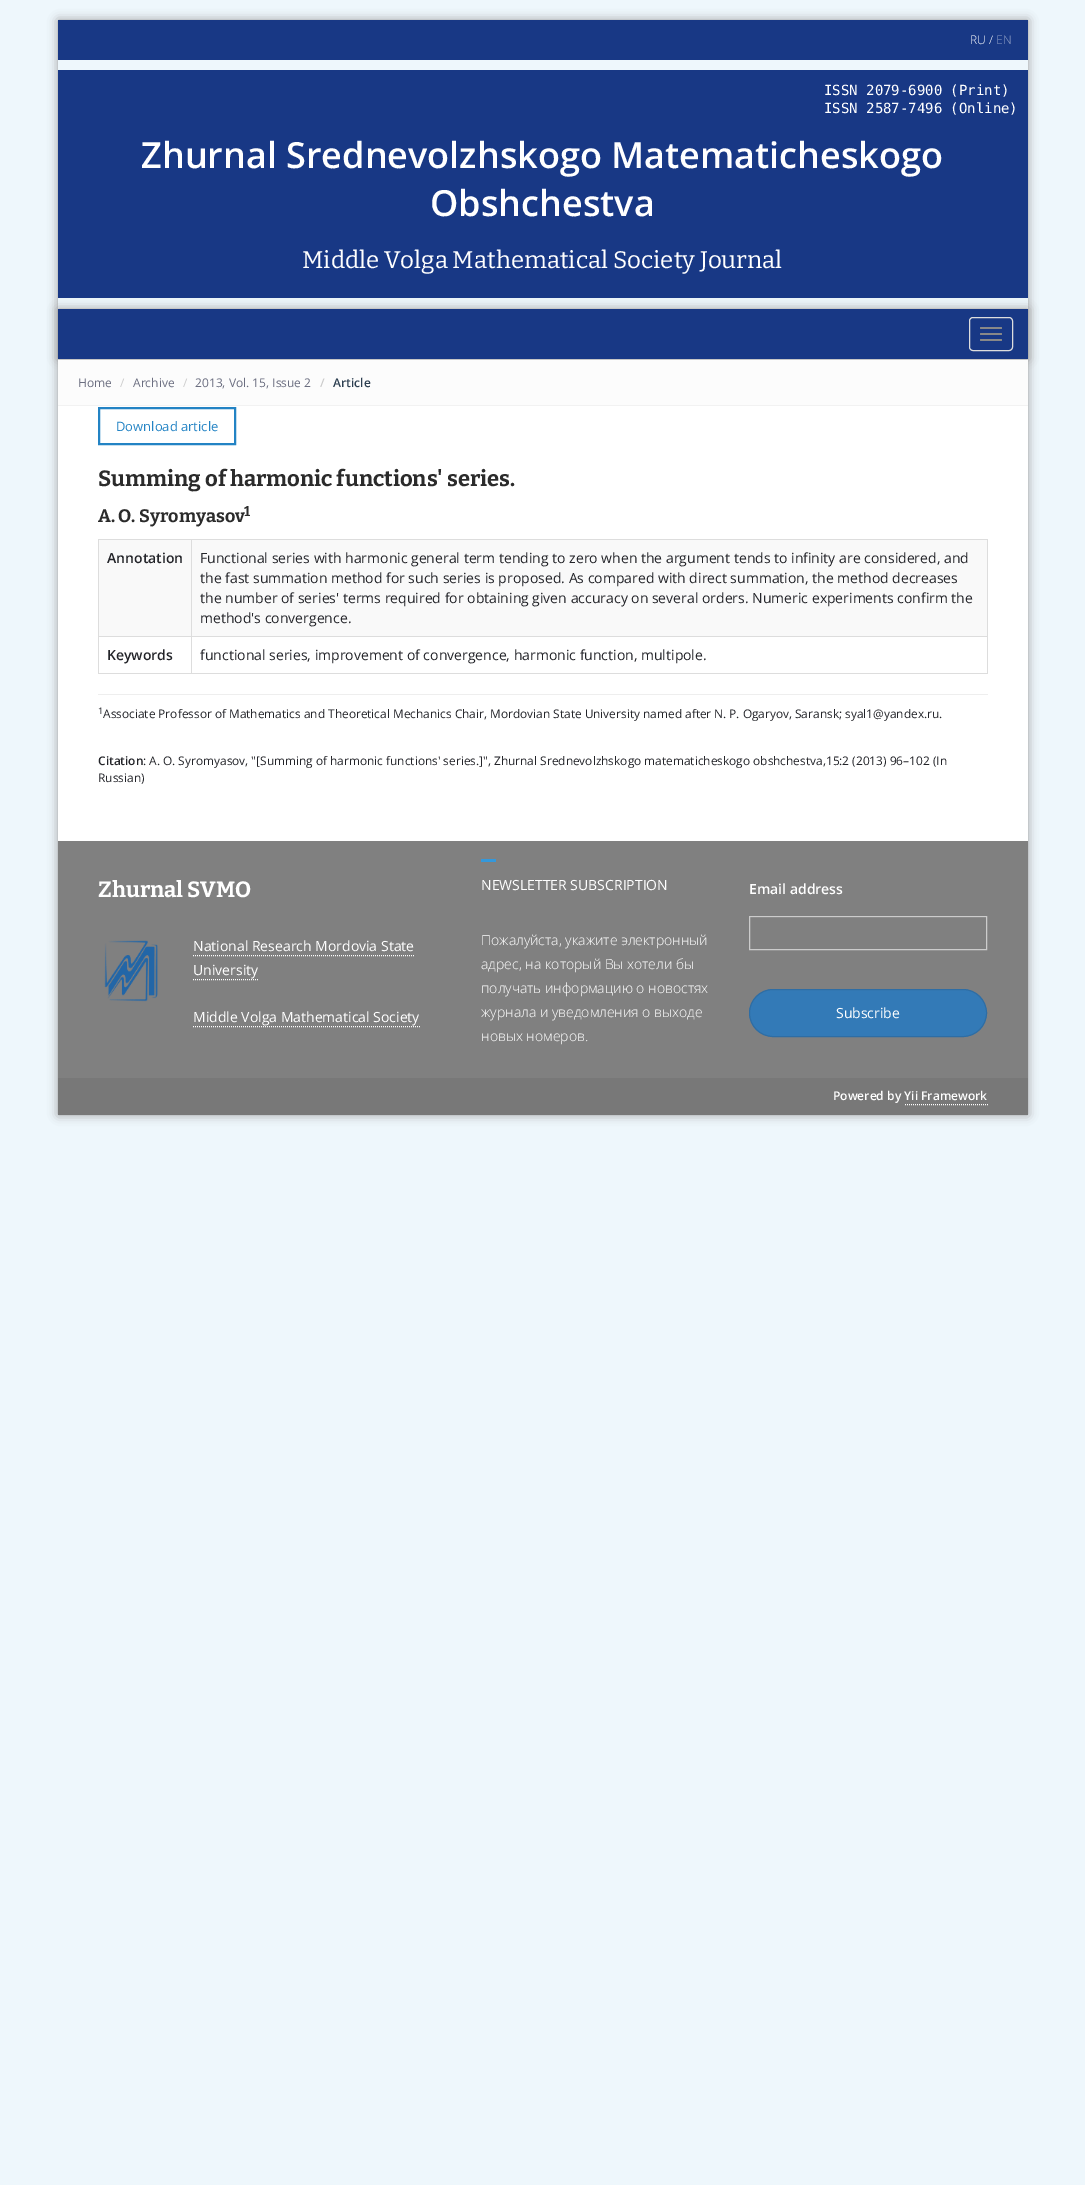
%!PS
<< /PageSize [1085 2185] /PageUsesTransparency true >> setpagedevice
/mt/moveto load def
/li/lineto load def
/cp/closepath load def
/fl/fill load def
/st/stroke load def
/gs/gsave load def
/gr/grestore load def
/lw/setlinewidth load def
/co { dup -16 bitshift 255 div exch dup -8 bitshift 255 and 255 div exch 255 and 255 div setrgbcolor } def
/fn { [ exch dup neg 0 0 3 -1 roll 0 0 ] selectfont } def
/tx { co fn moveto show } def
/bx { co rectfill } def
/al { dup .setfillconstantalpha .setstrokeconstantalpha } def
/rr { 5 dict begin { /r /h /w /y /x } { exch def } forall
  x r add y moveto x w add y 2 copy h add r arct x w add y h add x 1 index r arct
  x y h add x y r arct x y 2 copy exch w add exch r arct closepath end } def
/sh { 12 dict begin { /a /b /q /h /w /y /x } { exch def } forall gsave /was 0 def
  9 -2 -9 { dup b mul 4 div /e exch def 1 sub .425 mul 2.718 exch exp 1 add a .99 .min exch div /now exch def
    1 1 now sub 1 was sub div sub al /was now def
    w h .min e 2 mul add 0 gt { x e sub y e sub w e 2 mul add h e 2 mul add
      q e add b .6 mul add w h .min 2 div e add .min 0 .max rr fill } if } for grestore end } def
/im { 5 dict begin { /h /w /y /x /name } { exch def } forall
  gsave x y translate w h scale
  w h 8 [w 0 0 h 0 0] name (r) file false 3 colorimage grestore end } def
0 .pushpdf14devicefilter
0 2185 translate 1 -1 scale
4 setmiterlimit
0 0 1085 2185 16#EEF7FC bx
gs
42 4 mt 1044 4 li 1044 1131 li 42 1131 li cp 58 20 mt 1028 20 li 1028 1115 li 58 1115 li cp eoclip newpath
16#999999 co
58 20 970 1095 0 5 1 sh
gr
58 20 970 40 16#183885 bx
58 309 970 50 16#183885 bx
58 308 970 1 16#F2F2F2 bx
58 359 970 1 16#F2F2F2 bx
gs
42 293 mt 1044 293 li 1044 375 li 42 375 li cp 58 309 mt 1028 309 li 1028 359 li 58 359 li cp eoclip newpath
16#999999 co
58 309 970 50 0 5 1 sh
gr
58 70 970 228 16#183885 bx
16#DDDDDD co
969.5 317.5 43 33 3.5 rr st
16#888888 co
980 327 22 2 1 rr fl
980 333 22 2 1 rr fl
980 339 22 2 1 rr fl
58 360 970 45 16#FCFCFC bx
58 405 970 1 16#F2F2F2 bx
58 406 970 435 16#FFFFFF bx
16#2383C4 co
2 lw
99 408 136 36 rectstroke
98 539 890 1 16#DDDDDD bx
987 539 1 135 16#DDDDDD bx
98 673 890 1 16#DDDDDD bx
98 539 1 135 16#DDDDDD bx
99 540 888 96 16#F9F9F9 bx
191 636 797 1 16#DDDDDD bx
191 636 1 38 16#DDDDDD bx
98 636 94 1 16#DDDDDD bx
191 539 1 98 16#DDDDDD bx
98 694 890 1 16#EEEEEE bx
58 841 970 237 16#808080 bx
(media/1.raw) 104 940 54 62 im
16#FFFFFF co
1 lw
[1 1] 0 setdash
193 955.5 mt 415 955.5 li st
193 979.5 mt 258 979.5 li st
193 1026.5 mt 420 1026.5 li st
481 859 15 3 16#3498DB bx
750 917 236 1 16#767676 bx
16#CCCCCC co
[] 0 setdash
749.5 916.5 237 33 rectstroke
16#337AB7 co
749.5 989.5 237 47 23.5 rr gs fl gr
16#2E6DA4 co
st
58 1078 970 37 16#787878 bx
16#FFFFFF co
[1 1] 0 setdash
905 1104.5 mt 988 1104.5 li st
(RU /) 970 44 /OpenSans-Light 12 16#FFFFFF tx
(EN) 996 44 /OpenSans-Light 12 16#8C9CC2 tx
(ISSN 2079-6900 \(Print\)) 824 95 /DejaVuSansMono-Regular 14 16#FFFFFF tx
(ISSN 2587-7496 \(Online\)) 824 113 /DejaVuSansMono-Regular 14 16#FFFFFF tx
(Zhurnal Srednevolzhskogo Matematicheskogo) 141 168 /OpenSans-SemiBold 36 16#FFFFFF tx
(Obshchestva) 430 216 /OpenSans-SemiBold 36 16#FFFFFF tx
(Middle Volga Mathematical Society Journal) 302 268 /Bitter-Regular 24 16#FFFFFF tx
(Home) 78 387 /OpenSans-Regular 12 16#6B6E80 tx
(/) 120 387 /OpenSans-Regular 12 16#CCCCCC tx
(Archive) 133 387 /OpenSans-Regular 12 16#6B6E80 tx
(/) 183 387 /OpenSans-Regular 12 16#CCCCCC tx
(2013, Vol. 15, Issue 2) 195 387 /OpenSans-Regular 12 16#6B6E80 tx
(/) 320 387 /OpenSans-SemiBold 12 16#CCCCCC tx
(Article) 333 387 /OpenSans-SemiBold 12 16#2C3E50 tx
(Download article) 116 431 /OpenSans-Regular 13 16#2383C4 tx
(Summing of harmonic functions' series.) 98 486 /Bitter-Bold 22 16#2B2B2B tx
(A. O. Syromyasov) 98 522 /Bitter-Bold 18 16#2B2B2B tx
(1) 244 516 /Bitter-Bold 14 16#2B2B2B tx
(Annotation) 107 563 /OpenSans-SemiBold 14 16#232429 tx
(Functional series with harmonic general term tending to zero when the argument tends to infinity are considered, and) 200 563 /OpenSans-Regular 14 16#232429 tx
(the fast summation method for such series is proposed. As compared with direct summation, the method decreases) 200 583 /OpenSans-Regular 14 16#232429 tx
(the number of series' terms required for obtaining given accuracy on several orders. Numeric experiments confirm the) 200 603 /OpenSans-Regular 14 16#232429 tx
(method's convergence.) 200 623 /OpenSans-Regular 14 16#232429 tx
(Keywords) 107 660 /OpenSans-SemiBold 14 16#232429 tx
(functional series, improvement of convergence, harmonic function, multipole.) 200 660 /OpenSans-Regular 14 16#232429 tx
(1) 98 714 /OpenSans-Regular 9 16#232429 tx
(Associate Professor of Mathematics and Theoretical Mechanics Chair, Mordovian State University named after) 103 718 /OpenSans-Regular 11.9 16#232429 tx
(N. P. Ogaryov, Saransk; syal1@yandex.ru.) 714 718 /OpenSans-Regular 11.9 16#232429 tx
(Citation) 98 765 /OpenSans-SemiBold 11.9 16#232429 tx
(: A. O. Syromyasov, "[Summing of harmonic functions' series.]", Zhurnal Srednevolzhskogo matematicheskogo obshchestva,15:2 \(2013\) 96–102 \(In) 143 765 /OpenSans-Regular 11.9 16#232429 tx
(Russian\)) 98 782 /OpenSans-Regular 11.9 16#232429 tx
(Zhurnal SVMO) 98 897 /Bitter-Bold 22 16#FFFFFF tx
(National Research Mordovia State) 193 951 /OpenSans-Regular 14 16#FFFFFF tx
(University) 193 975 /OpenSans-Regular 14 16#FFFFFF tx
(Middle Volga Mathematical Society) 193 1022 /OpenSans-Regular 14 16#FFFFFF tx
(NEWSLETTER SUBSCRIPTION) 481 890 /OpenSans-Regular 14 16#FFFFFF tx
(Пожалуйста, укажите электронный) 481 945 /OpenSans-Light 14 16#FFFFFF tx
(адрес, на который Вы хотели бы) 481 969 /OpenSans-Light 14 16#FFFFFF tx
(получать информацию о новостях) 481 993 /OpenSans-Light 14 16#FFFFFF tx
(журнала и уведомления о выходе) 481 1017 /OpenSans-Light 14 16#FFFFFF tx
(новых номеров.) 481 1041 /OpenSans-Light 14 16#FFFFFF tx
(Email address) 749 894 /OpenSans-SemiBold 14 16#FFFFFF tx
(Subscribe) 836 1018 /OpenSans-Regular 14 16#FFFFFF tx
(Powered by Yii Framework) 833 1100 /OpenSans-SemiBold 12 16#FFFFFF tx
.poppdf14devicefilter showpage
